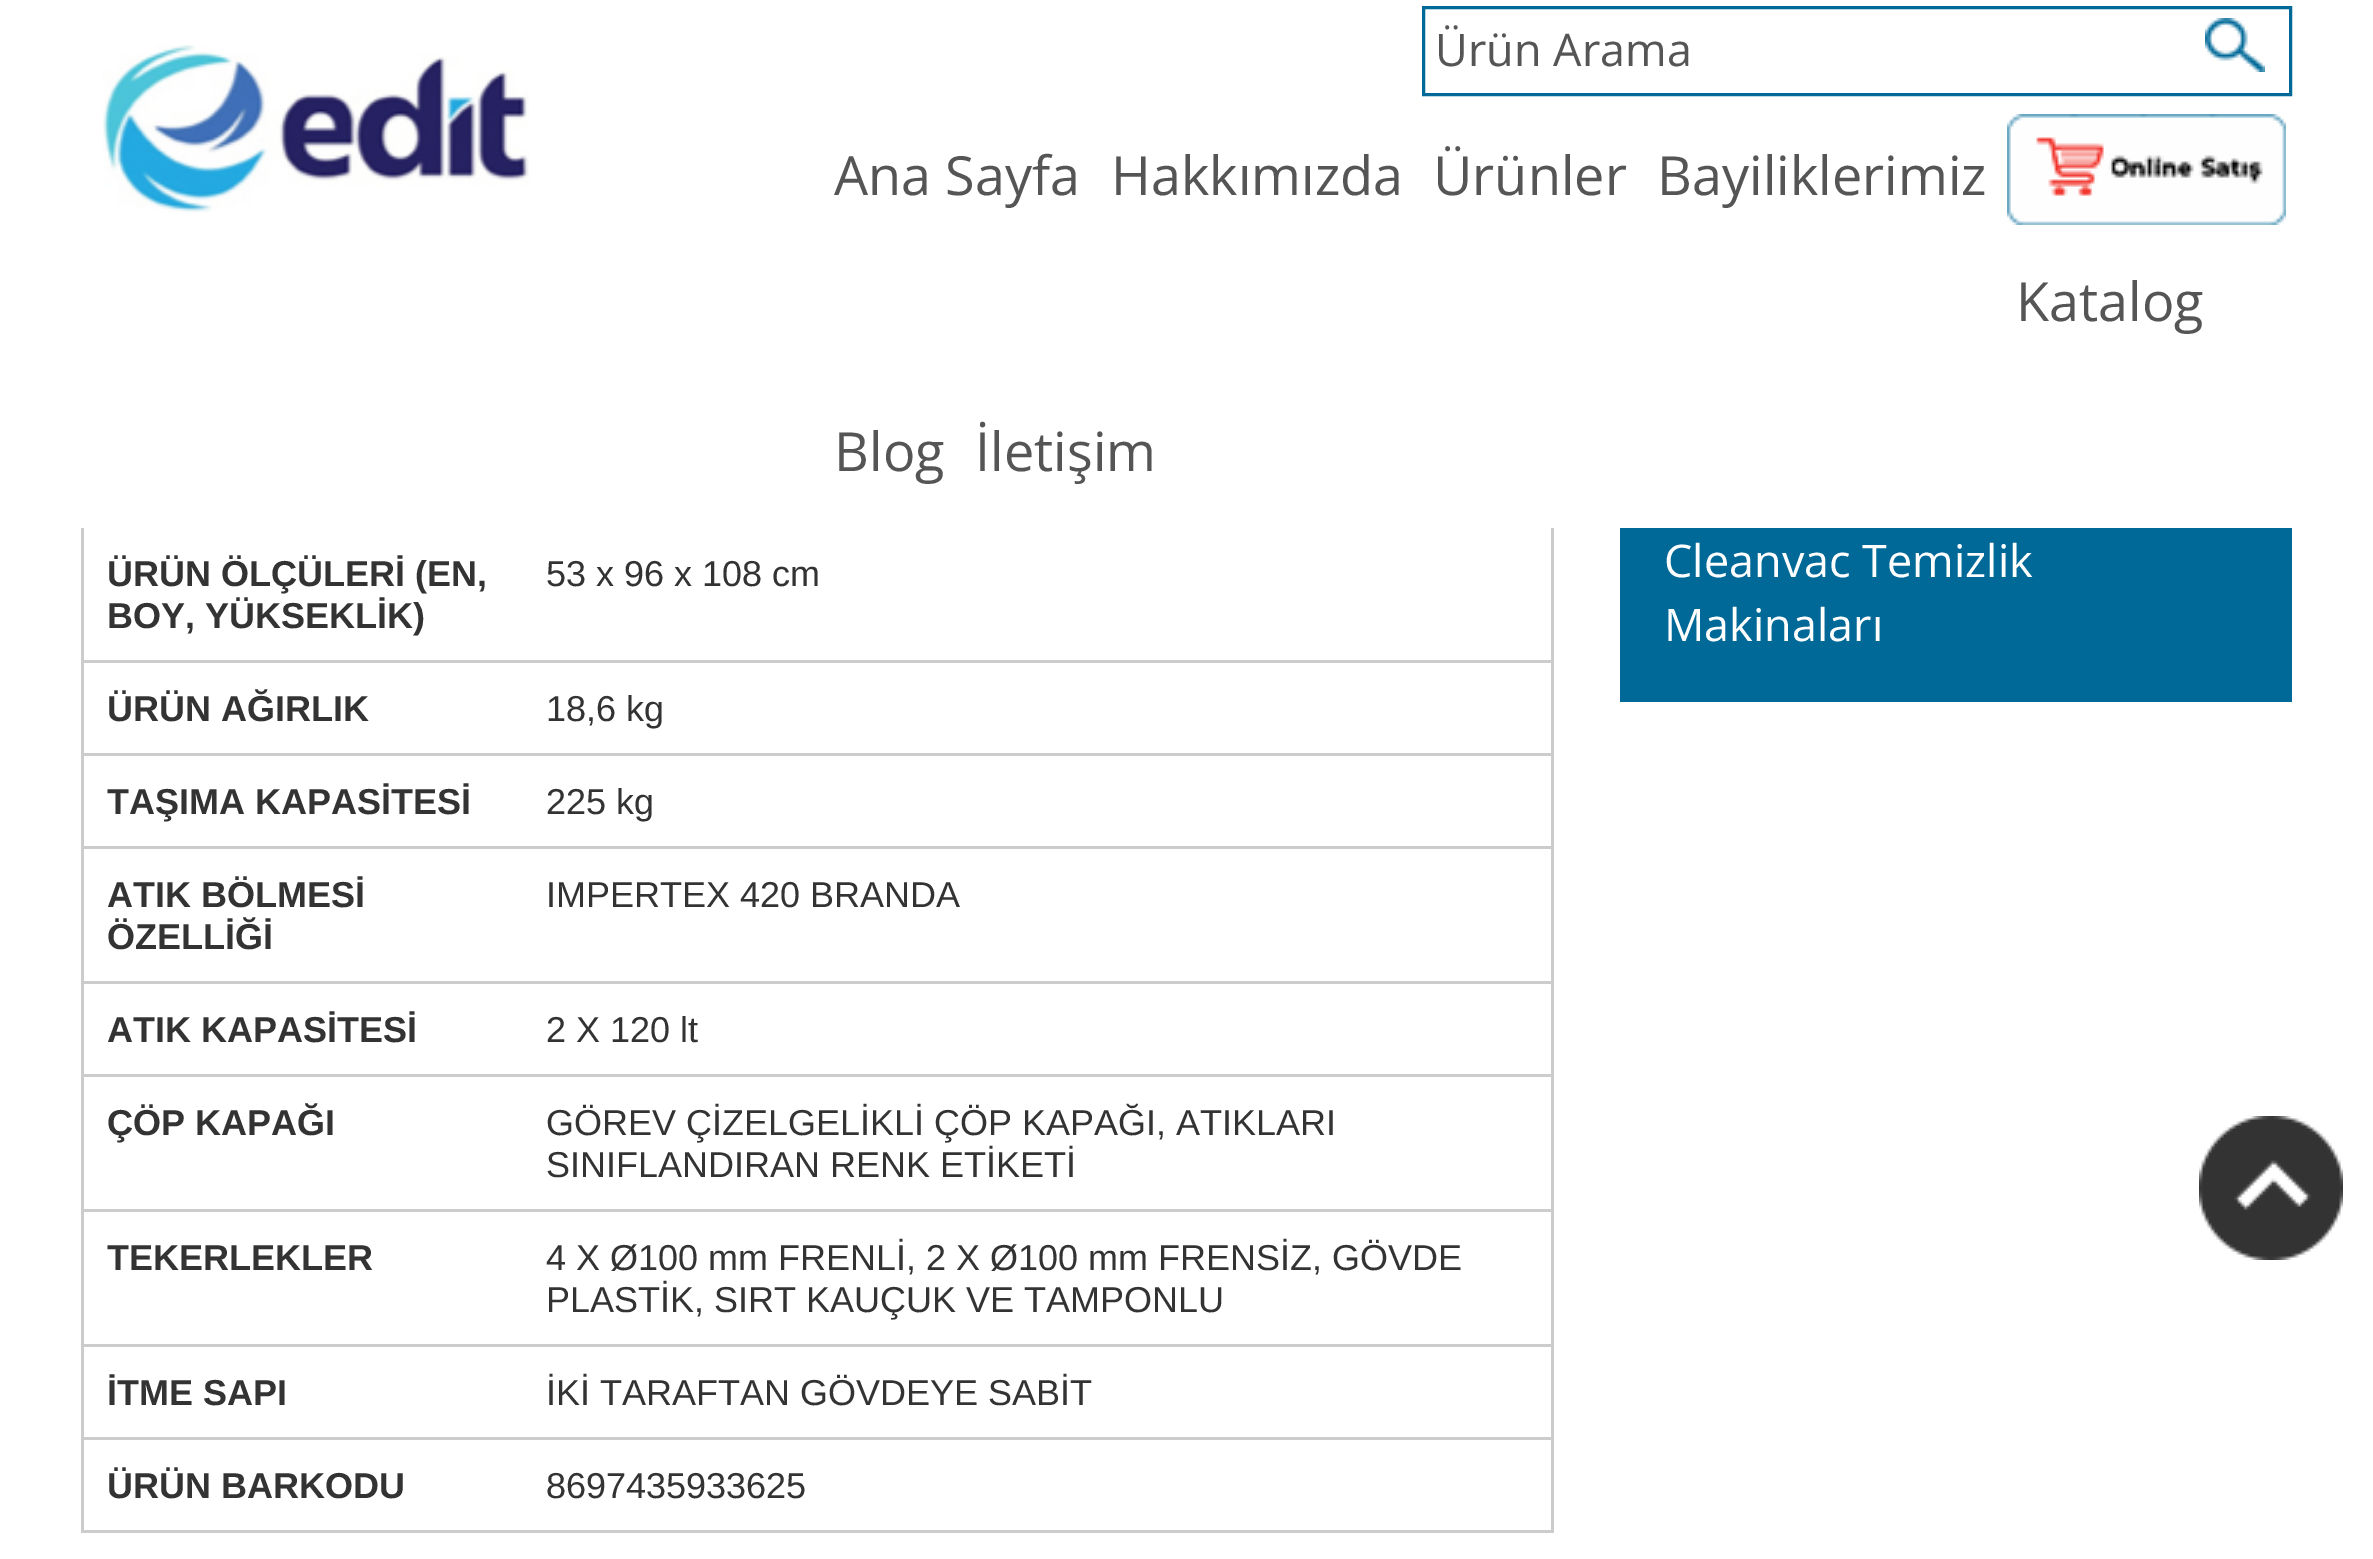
%!PS
<< /PageSize [2373 1559] >> setpagedevice
/lw/setlinewidth load def
/co { dup -16 bitshift 255 div exch dup -8 bitshift 255 and 255 div exch 255 and 255 div setrgbcolor } def
/fn { [ exch dup neg 0 0 3 -1 roll 0 0 ] selectfont } def
/tx { co fn moveto show } def
/bx { co rectfill } def
/im { 5 dict begin { /h /w /y /x /name } { exch def } forall
  gsave x y translate w h scale
  w h 8 [w 0 0 h 0 0] name (r) file false 3 colorimage grestore end } def
0 1559 translate 1 -1 scale
4 setmiterlimit
0 0 2373 1559 16#FFFFFF bx
81 660 1473 3 16#CCCCCC bx
81 753 1473 3 16#CCCCCC bx
81 846 1473 3 16#CCCCCC bx
81 981 1473 3 16#CCCCCC bx
81 1074 1473 3 16#CCCCCC bx
81 1209 1473 3 16#CCCCCC bx
81 1344 1473 3 16#CCCCCC bx
81 1437 1473 3 16#CCCCCC bx
1551 1437 3 96 16#CCCCCC bx
1551 1344 3 96 16#CCCCCC bx
1551 1209 3 138 16#CCCCCC bx
1551 1074 3 138 16#CCCCCC bx
1551 981 3 96 16#CCCCCC bx
1551 846 3 138 16#CCCCCC bx
1551 753 3 96 16#CCCCCC bx
1551 525 3 231 16#CCCCCC bx
81 1530 1473 3 16#CCCCCC bx
81 1437 3 96 16#CCCCCC bx
81 1344 3 96 16#CCCCCC bx
81 1209 3 138 16#CCCCCC bx
81 1074 3 138 16#CCCCCC bx
81 981 3 96 16#CCCCCC bx
81 846 3 138 16#CCCCCC bx
81 753 3 96 16#CCCCCC bx
81 525 3 231 16#CCCCCC bx
81 525 1473 3 16#FFFFFF bx
(media/1.raw) 103 45 426 168 im
16#006998 co
3 lw
1423.5 7.5 867 87 rectstroke
(media/2.raw) 2205 18 60 54 im
(media/3.raw) 2007 114 279 111 im
1620 528 672 174 16#006998 bx
(media/4.raw) 2199 1116 144 144 im
(Ürün Arama) 1435 66 /OpenSans-Regular 45 16#555555 tx
(Ana Sayfa) 834 195 /OpenSans-Regular 54 16#555555 tx
(Hakkımızda) 1111 195 /OpenSans-Regular 54 16#555555 tx
(Ürünler) 1433 195 /OpenSans-Regular 54 16#555555 tx
(Bayiliklerimiz) 1657 195 /OpenSans-Regular 54 16#555555 tx
(Katalog) 2016 321 /OpenSans-Regular 54 16#555555 tx
(Blog) 834 471 /OpenSans-Regular 54 16#555555 tx
(İletişim) 975 471 /OpenSans-Regular 54 16#555555 tx
(ÜRÜN ÖLÇÜLERİ \(EN,) 107 586 /LiberationSans-Bold 36 16#333333 tx
(BOY, YÜKSEKLİK\)) 107 628 /LiberationSans-Bold 36 16#333333 tx
(53 x 96 x 108 cm) 546 586 /LiberationSans-Regular 36 16#333333 tx
(ÜRÜN AĞIRLIK) 107 721 /LiberationSans-Bold 36 16#333333 tx
(18,6 kg) 546 721 /LiberationSans-Regular 36 16#333333 tx
(TAŞIMA KAPASİTESİ) 107 814 /LiberationSans-Bold 36 16#333333 tx
(225 kg) 546 814 /LiberationSans-Regular 36 16#333333 tx
(ATIK BÖLMESİ) 107 907 /LiberationSans-Bold 36 16#333333 tx
(ÖZELLİĞİ) 107 949 /LiberationSans-Bold 36 16#333333 tx
(IMPERTEX 420 BRANDA) 546 907 /LiberationSans-Regular 36 16#333333 tx
(ATIK KAPASİTESİ) 107 1042 /LiberationSans-Bold 36 16#333333 tx
(2 X 120 lt) 546 1042 /LiberationSans-Regular 36 16#333333 tx
(ÇÖP KAPAĞI) 107 1135 /LiberationSans-Bold 36 16#333333 tx
(GÖREV ÇİZELGELİKLİ ÇÖP KAPAĞI, ATIKLARI) 546 1135 /LiberationSans-Regular 36 16#333333 tx
(SINIFLANDIRAN RENK ETİKETİ) 546 1177 /LiberationSans-Regular 36 16#333333 tx
(TEKERLEKLER) 107 1270 /LiberationSans-Bold 36 16#333333 tx
(4 X Ø100 mm FRENLİ, 2 X Ø100 mm FRENSİZ, GÖVDE) 546 1270 /LiberationSans-Regular 36 16#333333 tx
(PLASTİK, SIRT KAUÇUK VE TAMPONLU) 546 1312 /LiberationSans-Regular 36 16#333333 tx
(İTME SAPI) 107 1405 /LiberationSans-Bold 36 16#333333 tx
(İKİ TARAFTAN GÖVDEYE SABİT) 546 1405 /LiberationSans-Regular 36 16#333333 tx
(ÜRÜN BARKODU) 107 1498 /LiberationSans-Bold 36 16#333333 tx
(8697435933625) 546 1498 /LiberationSans-Regular 36 16#333333 tx
(Cleanvac Temizlik) 1664 577 /OpenSans-Regular 45 16#FFFFFF tx
(Makinaları) 1664 641 /OpenSans-Regular 45 16#FFFFFF tx
showpage
